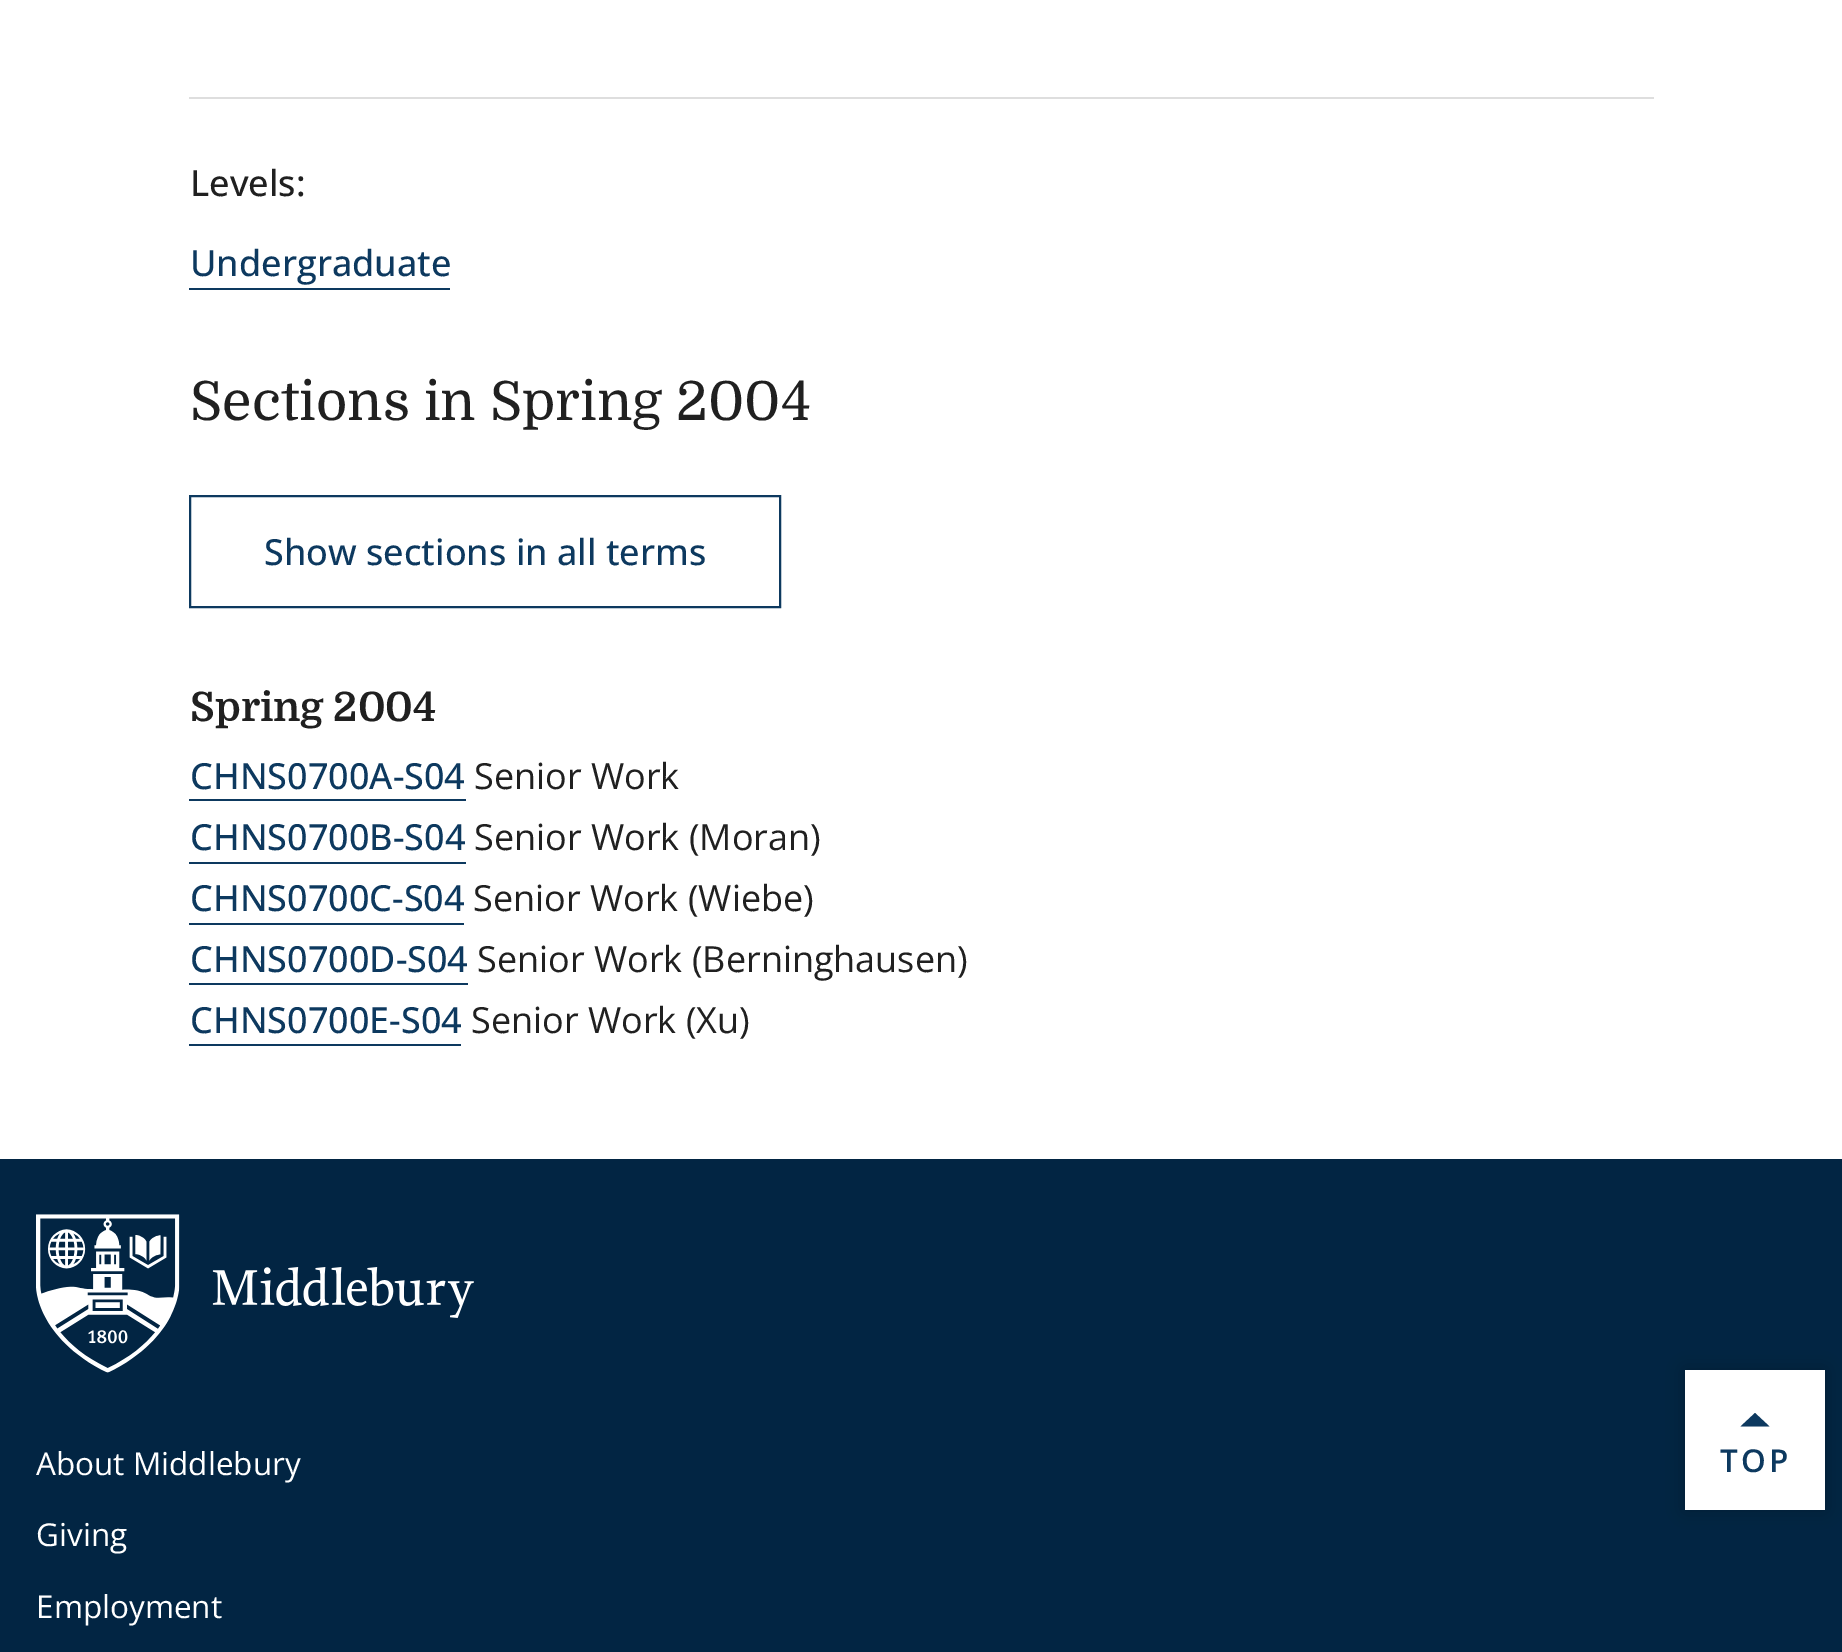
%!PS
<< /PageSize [1842 1652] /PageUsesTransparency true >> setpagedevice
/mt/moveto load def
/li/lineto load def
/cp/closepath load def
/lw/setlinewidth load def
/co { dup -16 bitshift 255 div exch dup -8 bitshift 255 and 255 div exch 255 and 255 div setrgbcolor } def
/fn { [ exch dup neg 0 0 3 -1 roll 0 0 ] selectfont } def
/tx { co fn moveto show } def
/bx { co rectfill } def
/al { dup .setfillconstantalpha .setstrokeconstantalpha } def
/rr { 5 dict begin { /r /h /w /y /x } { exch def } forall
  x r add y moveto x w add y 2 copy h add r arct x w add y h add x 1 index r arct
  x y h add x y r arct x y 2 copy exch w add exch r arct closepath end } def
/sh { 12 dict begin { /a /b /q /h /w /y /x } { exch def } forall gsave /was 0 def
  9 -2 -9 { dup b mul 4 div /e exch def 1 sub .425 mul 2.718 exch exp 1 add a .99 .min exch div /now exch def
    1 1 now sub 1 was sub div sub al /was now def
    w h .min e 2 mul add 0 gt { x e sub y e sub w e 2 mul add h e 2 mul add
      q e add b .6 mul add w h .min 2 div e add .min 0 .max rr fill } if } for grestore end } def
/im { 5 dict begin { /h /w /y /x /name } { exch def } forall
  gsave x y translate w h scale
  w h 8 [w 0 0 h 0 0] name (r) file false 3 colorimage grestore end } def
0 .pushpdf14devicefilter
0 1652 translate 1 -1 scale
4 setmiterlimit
0 0 1842 1652 16#FFFFFF bx
189 97 1465 2 16#DEDEDE bx
189 288 261 2 16#0D395F bx
2 lw
190 496 590 111 rectstroke
189 799 277 2 16#0D395F bx
189 862 277 2 16#0D395F bx
189 923 275 2 16#0D395F bx
189 983 279 2 16#0D395F bx
189 1044 272 2 16#0D395F bx
0 1159 1842 493 16#022543 bx
(media/1.raw) 36 1214 438 159 im
16#000000 co
1685 1370 140 140 0 9 .2 sh
1685 1370 140 140 16#FFFFFF bx
16#0D395F co
1740.5 1426.5 mt 1755 1413 li 1769.5 1426.5 li cp eofill
(Levels:) 190 196 /OpenSans-Medium 36 16#202020 tx
(Undergraduate) 190 276 /OpenSans-Medium 36 16#0D395F tx
(Sections in Spring 2004) 190 420 /Domine-Regular 54 16#202020 tx
(Show sections in all terms) 264 565 /OpenSans-Medium 36 16#0D395F tx
(Spring 2004) 190 721 /Domine-Bold 40.5 16#202020 tx
(CHNS0700A-S04) 190 789 /OpenSans-Medium 36 16#0D395F tx
(Senior Work) 474 789 /OpenSans-Regular 36 16#202020 tx
(CHNS0700B-S04) 190 850 /OpenSans-Medium 36 16#0D395F tx
(Senior Work \(Moran\)) 474 850 /OpenSans-Regular 36 16#202020 tx
(CHNS0700C-S04) 190 911 /OpenSans-Medium 36 16#0D395F tx
(Senior Work \(Wiebe\)) 473 911 /OpenSans-Regular 36 16#202020 tx
(CHNS0700D-S04) 190 972 /OpenSans-Medium 36 16#0D395F tx
(Senior Work \(Berninghausen\)) 477 972 /OpenSans-Regular 36 16#202020 tx
(CHNS0700E-S04) 190 1033 /OpenSans-Medium 36 16#0D395F tx
(Senior Work \(Xu\)) 471 1033 /OpenSans-Regular 36 16#202020 tx
(About Middlebury) 36 1475 /OpenSans-Regular 31.5 16#FFFFFF tx
(Giving) 36 1546 /OpenSans-Regular 31.5 16#FFFFFF tx
(Employment) 36 1618 /OpenSans-Regular 31.5 16#FFFFFF tx
/OpenSans-SemiBold 31.5 fn
16#0D395F co
1720 1472 mt 3 0 (TOP) ashow
.poppdf14devicefilter showpage
